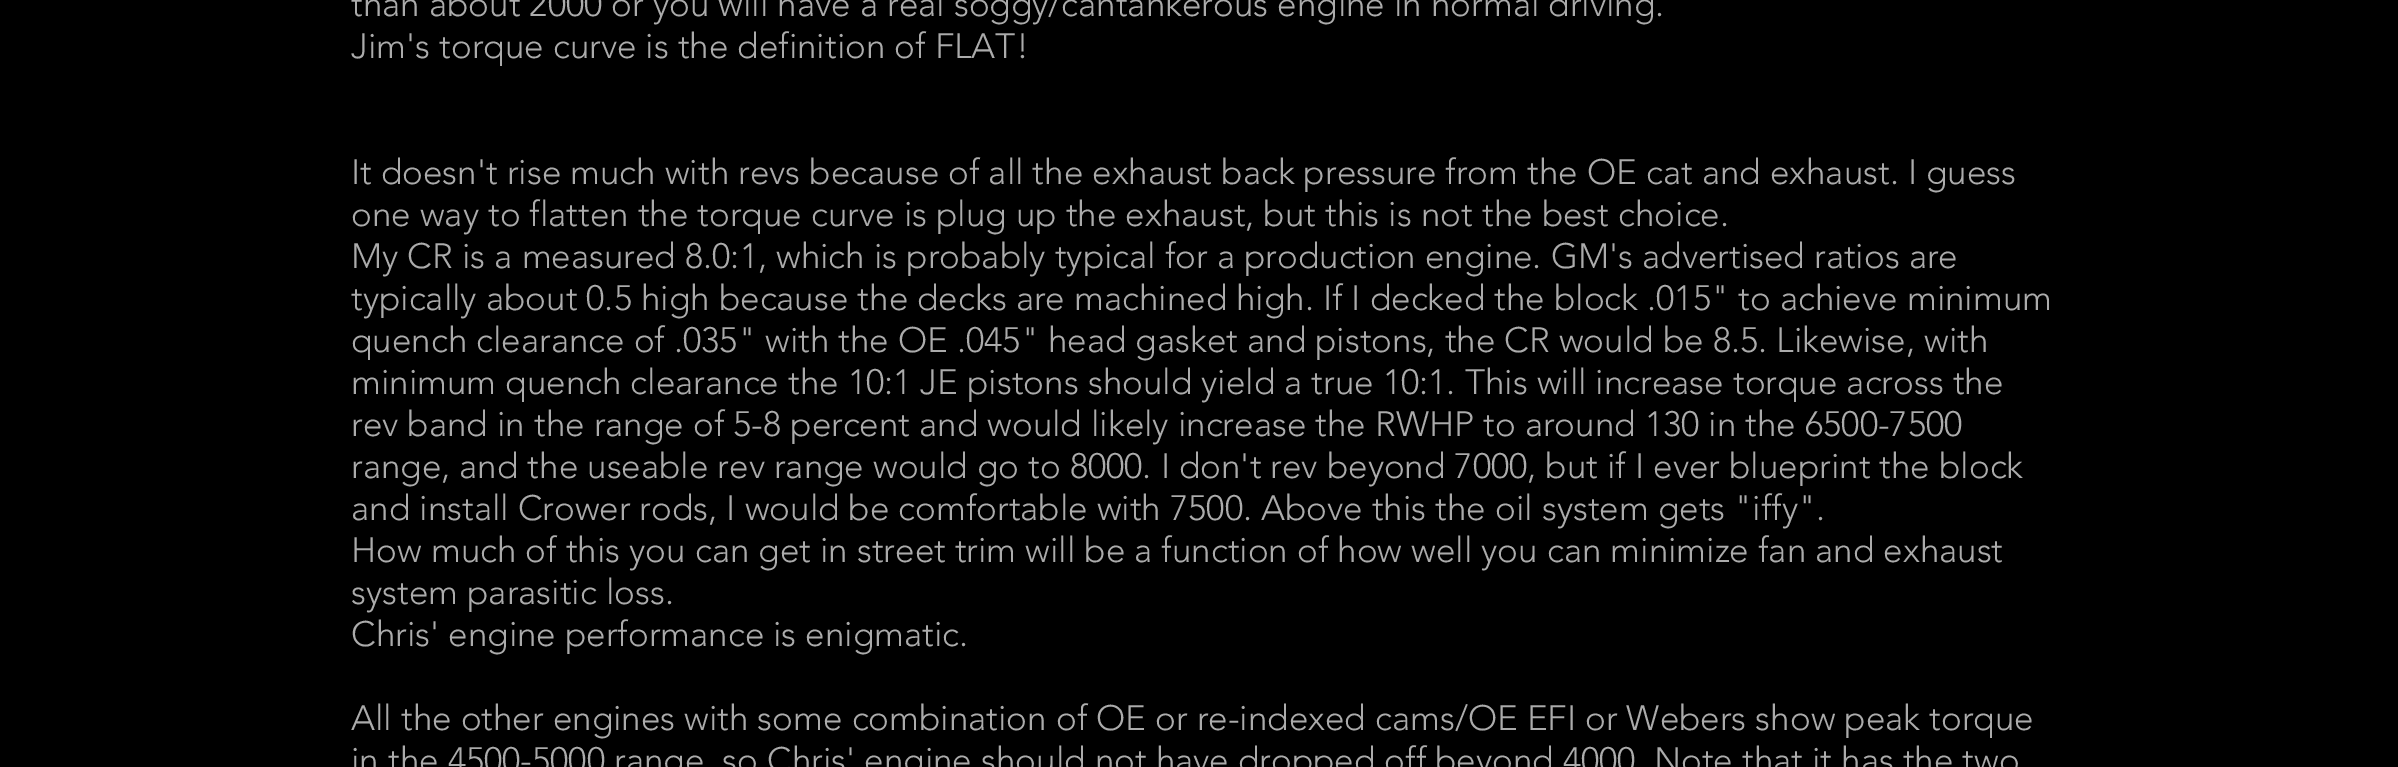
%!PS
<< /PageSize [2398 767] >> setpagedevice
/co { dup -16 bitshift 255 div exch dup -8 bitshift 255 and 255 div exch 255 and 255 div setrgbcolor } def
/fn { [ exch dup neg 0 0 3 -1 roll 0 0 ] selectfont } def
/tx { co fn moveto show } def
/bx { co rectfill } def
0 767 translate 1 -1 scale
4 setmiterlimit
0 0 2398 767 16#000000 bx
(than about 2000 or you will have a real soggy/cantankerous engine in normal driving.) 351 16 /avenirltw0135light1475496-Light 35 16#ABABAB tx
(Jim's torque curve is the definition of FLAT!) 351 58 /avenirltw0135light1475496-Light 35 16#ABABAB tx
(It doesn't rise much with revs because of all the exhaust back pressure from the OE cat and exhaust. I guess) 351 184 /avenirltw0135light1475496-Light 35 16#ABABAB tx
(one way to flatten the torque curve is plug up the exhaust, but this is not the best choice.) 351 226 /avenirltw0135light1475496-Light 35 16#ABABAB tx
(My CR is a measured 8.0:1, which is probably typical for a production engine. GM's advertised ratios are) 351 268 /avenirltw0135light1475496-Light 35 16#ABABAB tx
(typically about 0.5 high because the decks are machined high. If I decked the block .015" to achieve minimum) 351 310 /avenirltw0135light1475496-Light 35 16#ABABAB tx
(quench clearance of .035" with the OE .045" head gasket and pistons, the CR would be 8.5. Likewise, with) 351 352 /avenirltw0135light1475496-Light 35 16#ABABAB tx
(minimum quench clearance the 10:1 JE pistons should yield a true 10:1. This will increase torque across the) 351 394 /avenirltw0135light1475496-Light 35 16#ABABAB tx
(rev band in the range of 5-8 percent and would likely increase the RWHP to around 130 in the 6500-7500) 351 436 /avenirltw0135light1475496-Light 35 16#ABABAB tx
(range, and the useable rev range would go to 8000. I don't rev beyond 7000, but if I ever blueprint the block) 351 478 /avenirltw0135light1475496-Light 35 16#ABABAB tx
(and install Crower rods, I would be comfortable with 7500. Above this the oil system gets "iffy".) 351 520 /avenirltw0135light1475496-Light 35 16#ABABAB tx
(How much of this you can get in street trim will be a function of how well you can minimize fan and exhaust) 351 562 /avenirltw0135light1475496-Light 35 16#ABABAB tx
(system parasitic loss.) 351 604 /avenirltw0135light1475496-Light 35 16#ABABAB tx
(Chris' engine performance is enigmatic.) 351 646 /avenirltw0135light1475496-Light 35 16#ABABAB tx
(All the other engines with some combination of OE or re-indexed cams/OE EFI or Webers show peak torque) 351 730 /avenirltw0135light1475496-Light 35 16#ABABAB tx
(in the 4500-5000 range, so Chris' engine should not have dropped off beyond 4000. Note that it has the two) 351 772 /avenirltw0135light1475496-Light 35 16#ABABAB tx
showpage
